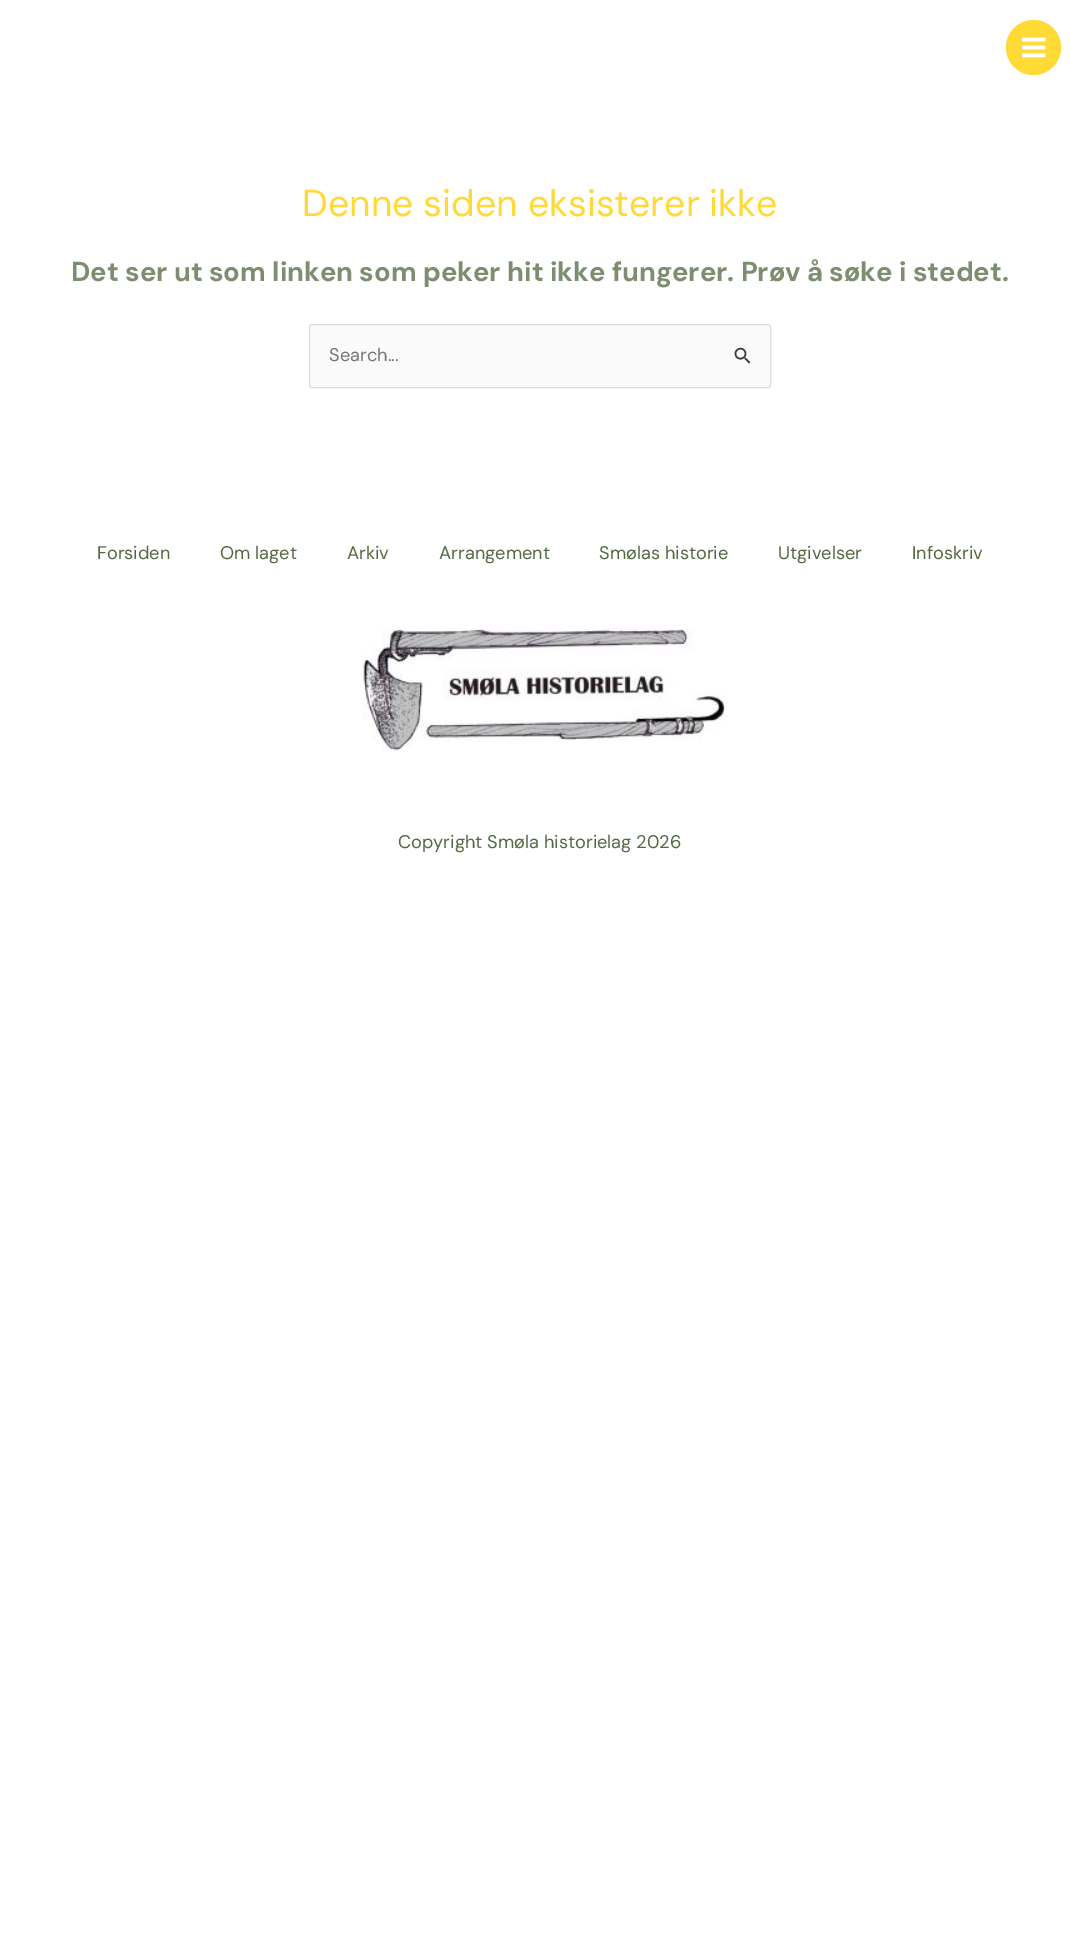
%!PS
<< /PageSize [1080 1953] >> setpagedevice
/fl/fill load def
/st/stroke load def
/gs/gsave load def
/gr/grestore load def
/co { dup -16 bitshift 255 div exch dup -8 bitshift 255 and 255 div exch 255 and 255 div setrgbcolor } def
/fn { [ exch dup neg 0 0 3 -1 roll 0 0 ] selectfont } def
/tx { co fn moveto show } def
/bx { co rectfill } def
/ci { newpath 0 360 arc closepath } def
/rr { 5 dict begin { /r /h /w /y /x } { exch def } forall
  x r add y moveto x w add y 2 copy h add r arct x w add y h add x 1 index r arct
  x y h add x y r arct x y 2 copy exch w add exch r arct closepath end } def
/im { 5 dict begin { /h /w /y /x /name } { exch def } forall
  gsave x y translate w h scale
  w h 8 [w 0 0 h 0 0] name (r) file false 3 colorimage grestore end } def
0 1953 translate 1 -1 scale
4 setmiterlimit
0 0 1080 1953 16#FFFFFF bx
16#FFD936 co
1033.5 47.5 27.5 ci fl
(media/1.raw) 1021 37 25 21 im
16#FAFAFA co
309.5 324.5 461 63 2 rr gs fl gr
16#DDDDDD co
st
(media/2.raw) 734 347 16 17 im
(media/3.raw) 362 628 366 123 im
(Denne siden eksisterer ikke) 302 216 /DMSans-Regular 37.5 16#FFD936 tx
(Det ser ut som linken som peker hit ikke fungerer. Prøv å søke i stedet.) 71 281 /DMSans-Bold 27.35 16#7D8E70 tx
(Search...) 329 361 /DMSans-Regular 18.25 16#757575 tx
(Forsiden) 97 559 /DMSans-Regular 18.25 16#536942 tx
(Om laget) 220 559 /DMSans-Regular 18.25 16#536942 tx
(Arkiv) 347 559 /DMSans-Regular 18.25 16#536942 tx
(Arrangement) 439 559 /DMSans-Regular 18.25 16#536942 tx
(Smølas historie) 599 559 /DMSans-Regular 18.25 16#536942 tx
(Utgivelser) 778 559 /DMSans-Regular 18.25 16#536942 tx
(Infoskriv) 912 559 /DMSans-Regular 18.25 16#536942 tx
(Copyright Smøla historielag 2026) 398 848 /DMSans-Regular 18.25 16#536942 tx
showpage
